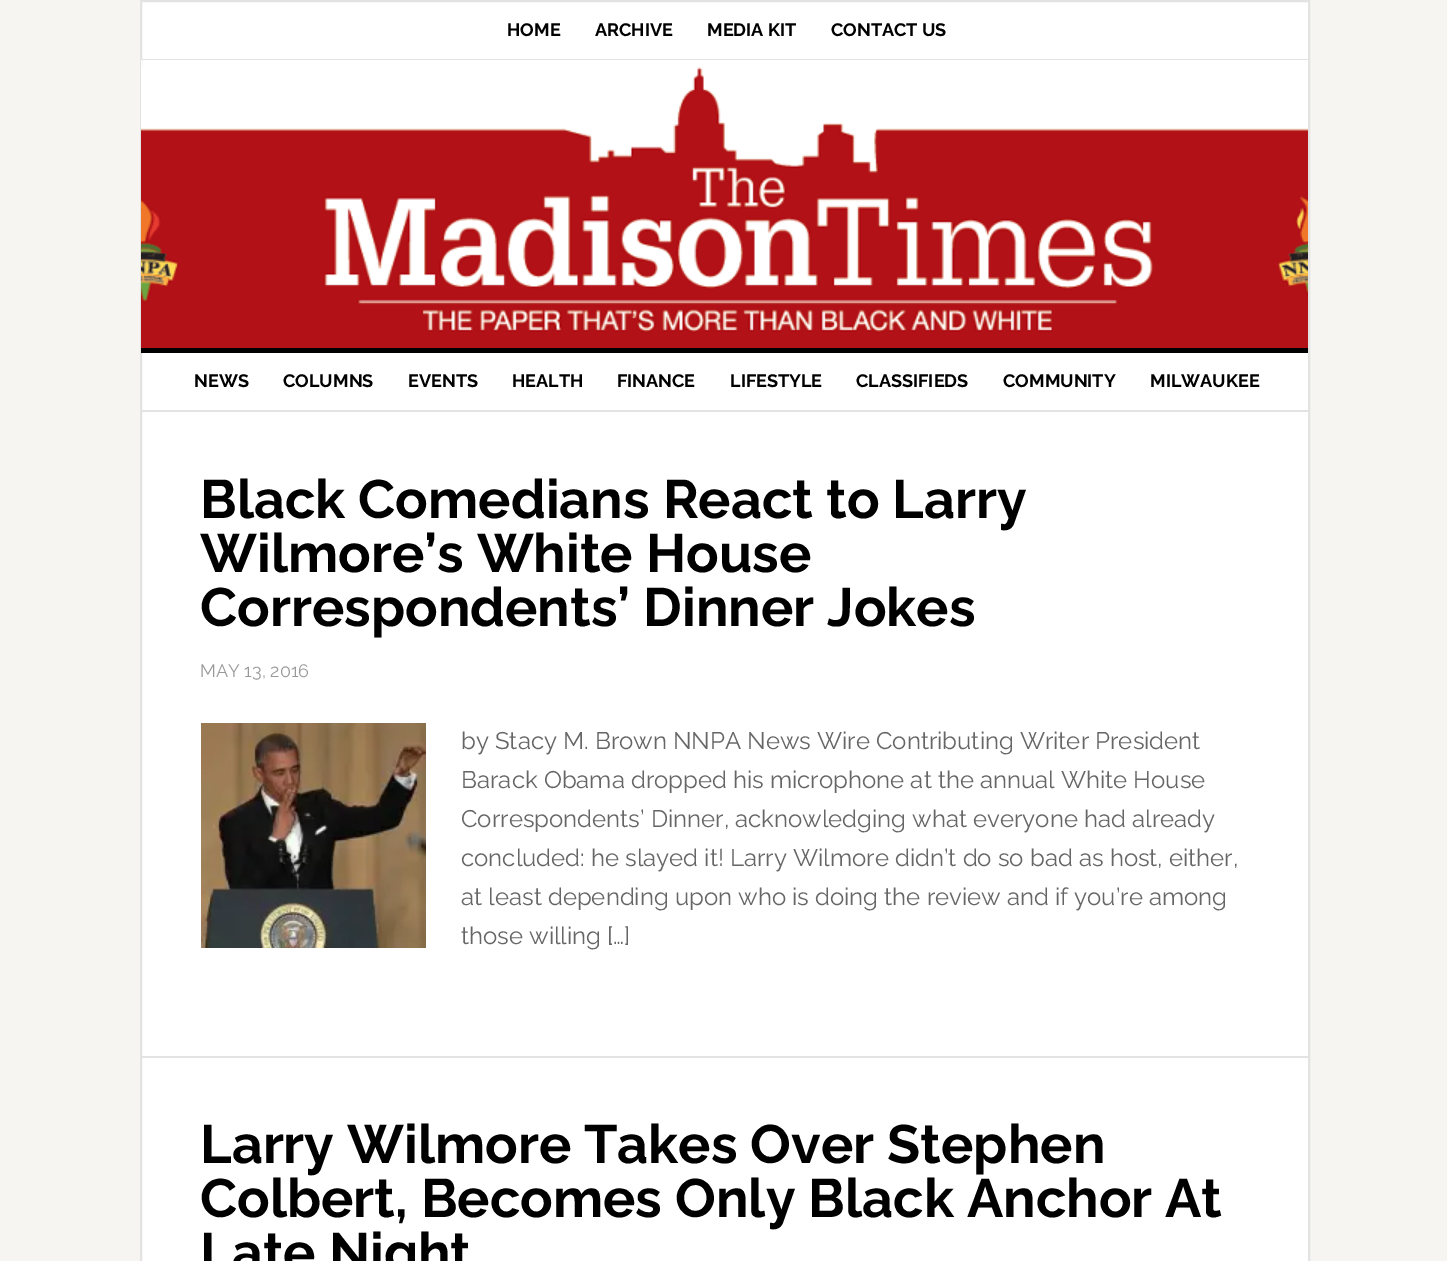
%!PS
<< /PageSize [1447 1261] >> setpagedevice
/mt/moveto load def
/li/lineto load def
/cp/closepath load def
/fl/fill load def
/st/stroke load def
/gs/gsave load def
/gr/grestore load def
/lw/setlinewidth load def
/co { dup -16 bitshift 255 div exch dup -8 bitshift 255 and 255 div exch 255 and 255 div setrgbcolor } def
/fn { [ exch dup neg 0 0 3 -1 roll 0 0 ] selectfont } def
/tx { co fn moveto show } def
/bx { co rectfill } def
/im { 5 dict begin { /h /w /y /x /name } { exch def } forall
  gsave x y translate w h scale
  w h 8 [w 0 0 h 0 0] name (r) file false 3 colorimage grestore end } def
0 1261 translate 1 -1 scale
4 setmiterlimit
0 0 1447 1261 16#F6F5F2 bx
16#FFFFFF co
141 1 mt 1309 1 li 1309 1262 li 141 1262 li cp gs fl gr
16#E3E3E3 co
2 lw
st
141 59 1167 1 16#E3E3E3 bx
141 60 1 7 16#FFFFFF bx
141 348 1167 5 16#000000 bx
(media/1.raw) 141 67 1167 281 im
141 410 1167 2 16#E3E3E3 bx
141 1056 1167 2 16#E3E3E3 bx
(media/2.raw) 201 723 225 225 im
(HOME) 507 36 /Raleway-Bold 18 16#000000 tx
(ARCHIVE) 595 36 /Raleway-Bold 18 16#000000 tx
(MEDIA KIT) 707 36 /Raleway-Bold 18 16#000000 tx
(CONTACT US) 831 36 /Raleway-Bold 18 16#000000 tx
(NEWS) 194 387 /Raleway-Bold 18 16#000000 tx
(COLUMNS) 283 387 /Raleway-Bold 18 16#000000 tx
(EVENTS) 408 387 /Raleway-Bold 18 16#000000 tx
(HEALTH) 512 387 /Raleway-Bold 18 16#000000 tx
(FINANCE) 617 387 /Raleway-Bold 18 16#000000 tx
(LIFESTYLE) 730 387 /Raleway-Bold 18 16#000000 tx
(CLASSIFIEDS) 856 387 /Raleway-Bold 18 16#000000 tx
(COMMUNITY) 1003 387 /Raleway-Bold 18 16#000000 tx
(MILWAUKEE) 1150 387 /Raleway-Bold 18 16#000000 tx
(Black Comedians React to Larry) 200 518 /Raleway-Bold 54 16#000000 tx
(Wilmore’s White House) 200 572 /Raleway-Bold 54 16#000000 tx
(Correspondents’ Dinner Jokes) 200 626 /Raleway-Bold 54 16#000000 tx
(MAY 13, 2016) 200 677 /Raleway-Regular 18 16#999999 tx
(by Stacy M. Brown NNPA News Wire Contributing Writer President) 461 749 /Raleway-Regular 24 16#666666 tx
(Barack Obama dropped his microphone at the annual White House) 461 788 /Raleway-Regular 24 16#666666 tx
(Correspondents’ Dinner, acknowledging what everyone had already) 461 827 /Raleway-Regular 24 16#666666 tx
(concluded: he slayed it! Larry Wilmore didn’t do so bad as host, either,) 461 866 /Raleway-Regular 24 16#666666 tx
(at least depending upon who is doing the review and if you’re among) 461 905 /Raleway-Regular 24 16#666666 tx
(those willing […]) 461 944 /Raleway-Regular 24 16#666666 tx
(Larry Wilmore Takes Over Stephen) 200 1163 /Raleway-Bold 54 16#000000 tx
(Colbert, Becomes Only Black Anchor At) 200 1217 /Raleway-Bold 54 16#000000 tx
(Late Night) 200 1271 /Raleway-Bold 54 16#000000 tx
showpage
